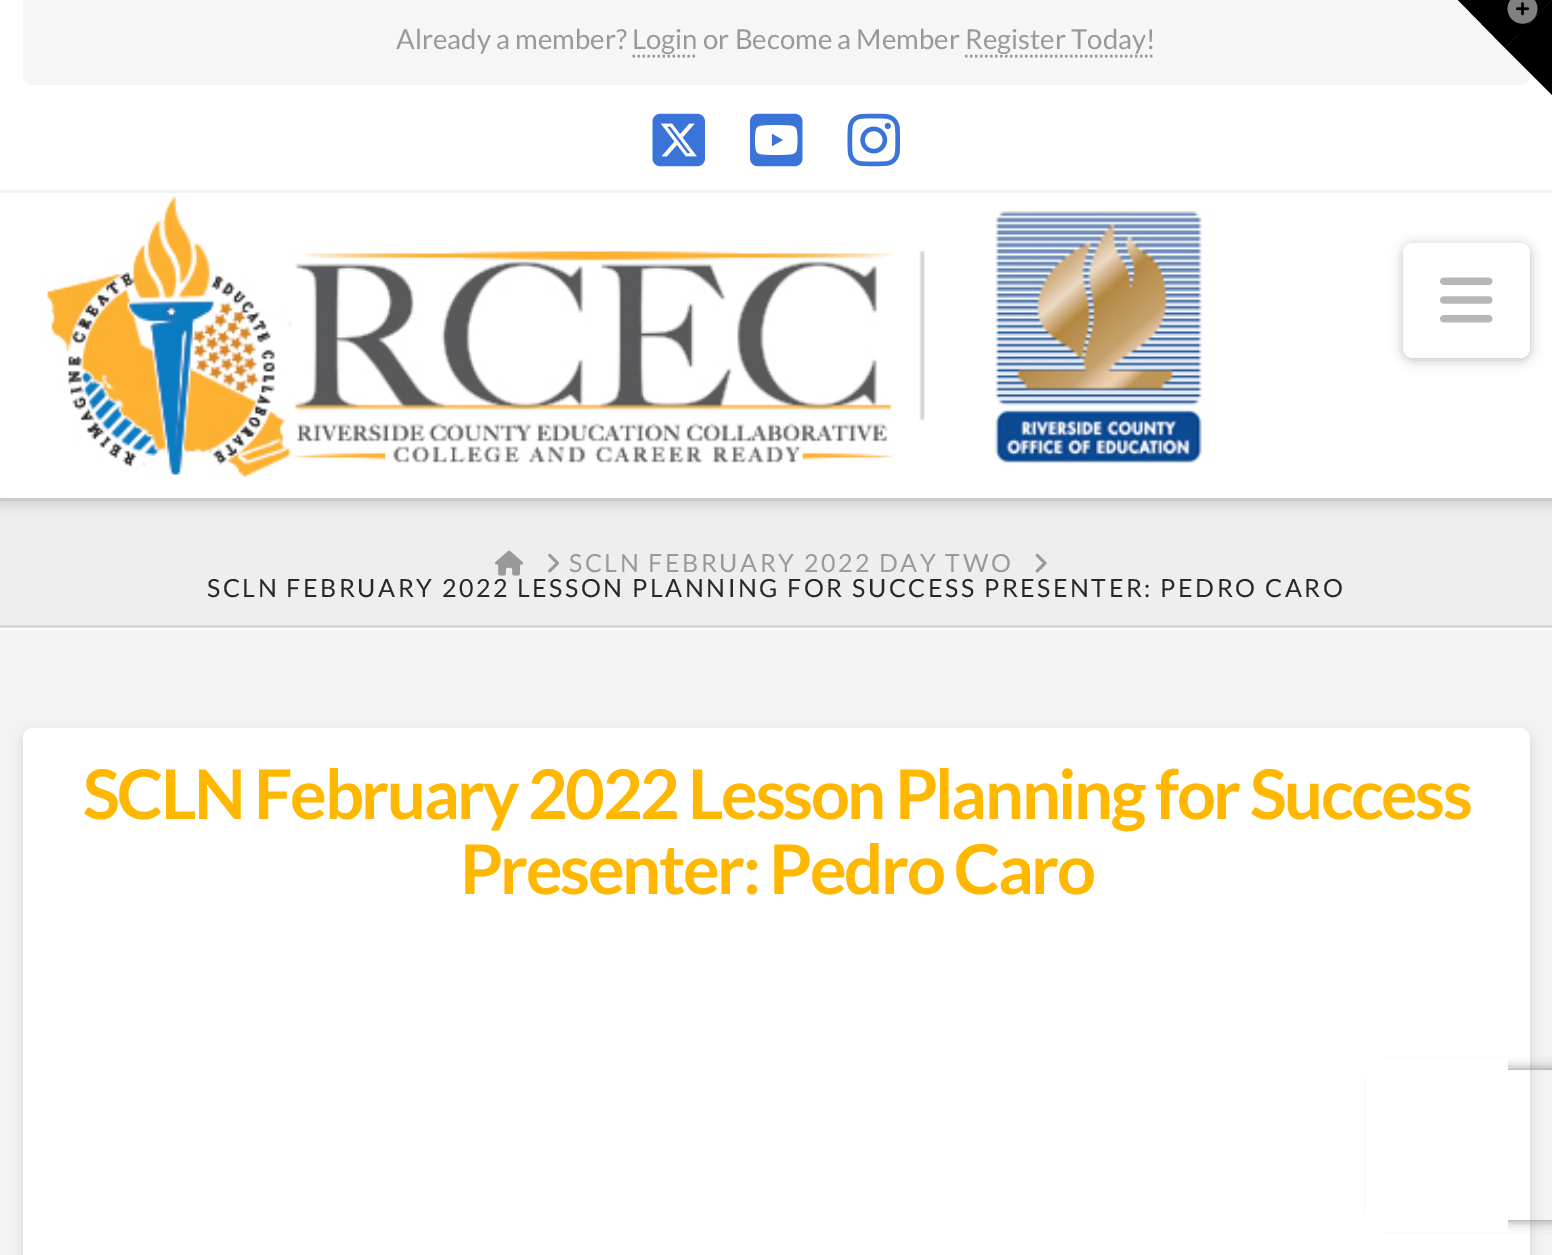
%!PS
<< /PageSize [1552 1255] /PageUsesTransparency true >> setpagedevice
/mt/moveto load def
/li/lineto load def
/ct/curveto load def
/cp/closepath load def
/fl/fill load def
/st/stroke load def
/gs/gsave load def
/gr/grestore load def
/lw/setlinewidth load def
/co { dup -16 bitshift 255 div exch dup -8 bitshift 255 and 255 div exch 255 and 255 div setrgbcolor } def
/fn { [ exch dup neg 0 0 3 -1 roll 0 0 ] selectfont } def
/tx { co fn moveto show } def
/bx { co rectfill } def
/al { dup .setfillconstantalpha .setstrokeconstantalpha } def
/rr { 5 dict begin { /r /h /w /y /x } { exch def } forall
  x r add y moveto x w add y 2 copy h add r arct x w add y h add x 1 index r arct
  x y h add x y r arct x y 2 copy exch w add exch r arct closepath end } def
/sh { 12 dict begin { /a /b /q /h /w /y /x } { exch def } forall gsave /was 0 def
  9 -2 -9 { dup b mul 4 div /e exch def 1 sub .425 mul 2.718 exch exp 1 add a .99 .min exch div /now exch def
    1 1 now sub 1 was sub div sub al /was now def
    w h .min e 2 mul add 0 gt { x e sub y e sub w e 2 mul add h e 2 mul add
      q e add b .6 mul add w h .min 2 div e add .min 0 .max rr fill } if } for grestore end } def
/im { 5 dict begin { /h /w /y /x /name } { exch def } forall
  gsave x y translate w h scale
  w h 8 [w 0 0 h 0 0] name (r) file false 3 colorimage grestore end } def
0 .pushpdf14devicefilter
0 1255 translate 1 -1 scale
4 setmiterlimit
0 0 1552 1255 16#F3F3F3 bx
0 501 1552 124 16#EEEEEE bx
16#000000 co
0 198 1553 307 0 7 .13 sh
0 0 1552 190 16#FFFFFF bx
0 190 1552 3 16#F2F2F2 bx
16#F6F6F6 co
23 0 mt 1530 0 li 1530 75 li 1530 80.5 1525.5 85 1520 85 ct 33 85 li 27.5 85 23 80.5 23 75 ct cp fl
16#999999 co
2.5 lw
[2.5 2.5] 0 setdash
632.5 56 mt 697.5 56 li st
965 56 mt 1155 56 li st
(media/1.raw) 652 113 53 54 im
(media/2.raw) 750 113 53 54 im
(media/3.raw) 847 113 53 54 im
0 193 1552 305 16#FFFFFF bx
0 498 1552 3 16#CCCCCC bx
(media/4.raw) 23 193 1249 285 im
16#000000 co
1403 245 127 115 10 6 .25 sh
16#FFFFFF co
1403 243 127 115 10 rr fl
(media/5.raw) 1440 277 53 46 im
16#FCFCFC co
0 628 mt 0 630 li 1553 630 li 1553 503 li 1552 503 li 1552 628 li cp fl
0 625 1552 3 16#D6D6D6 bx
(media/6.raw) 495 550 28 26 im
(media/7.raw) 548 553 11 20 im
(media/8.raw) 1035 553 12 20 im
16#000000 co
23 733 1507 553 10 7 .13 sh
16#FFFFFF co
23 728 1507 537 10 rr fl
gs
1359 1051 mt 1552 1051 li 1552 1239 li 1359 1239 li cp 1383 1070 mt 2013 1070 li 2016 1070 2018 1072 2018 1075 ct 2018 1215 li 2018 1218 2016 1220 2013 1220 ct 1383 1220 li 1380 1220 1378 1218 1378 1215 ct 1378 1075 li 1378 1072 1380 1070 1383 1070 ct cp eoclip newpath
16#808080 co
1378 1070 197 150 5 6 1 sh
gr
1366 1058 142 174 16#FFFFFF bx
16#000000 co
1458 0 mt 1552 0 li 1505 48 li cp fl
1552 0 mt 1552 95 li 1505 48 li cp fl
(media/9.raw) 1507 0 31 24 im
(Already a member? Login or Become a Member Register Today!) 396 49 /Lato-Regular 27.5 16#999999 tx
/Lato-Regular 25 fn
569 572 mt 2.5 0 (SCLN FEBRUARY 2022 DAY TWO) ashow
16#272727 co
207 597 mt 2.5 0 (SCLN FEBRUARY 2022 LESSON PLANNING FOR SUCCESS PRESENTER: PEDRO CARO) ashow
/Lato-Bold 68.6 fn
16#FFB700 co
83 819 mt -2.4 0 (SCLN February 2022 Lesson Planning for Success) ashow
460 894 mt -2.4 0 (Presenter: Pedro Caro) ashow
.poppdf14devicefilter showpage
